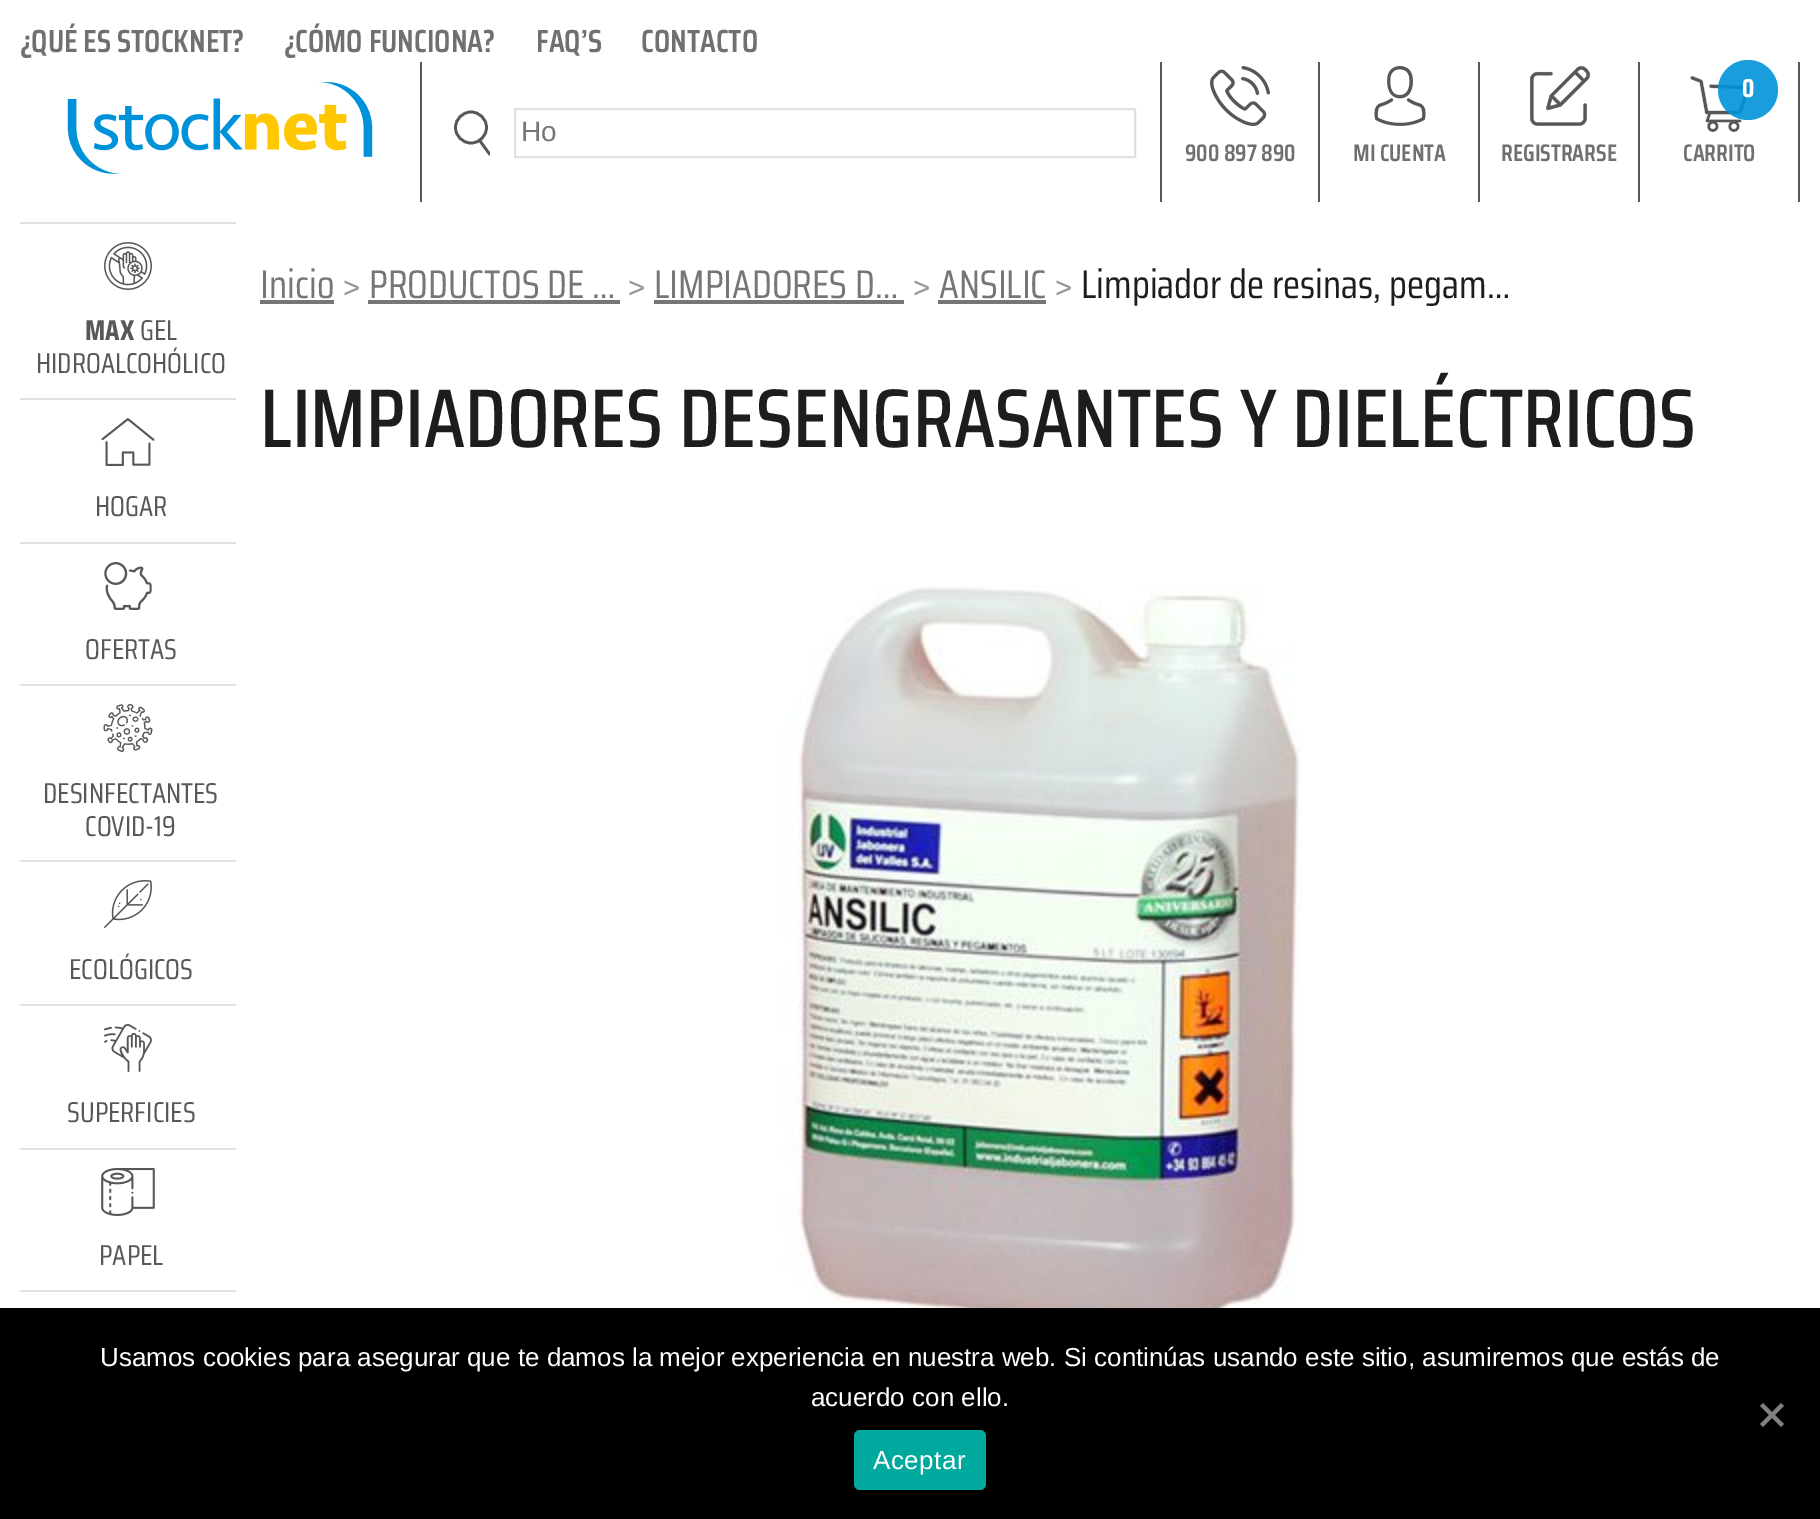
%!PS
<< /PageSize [1820 1519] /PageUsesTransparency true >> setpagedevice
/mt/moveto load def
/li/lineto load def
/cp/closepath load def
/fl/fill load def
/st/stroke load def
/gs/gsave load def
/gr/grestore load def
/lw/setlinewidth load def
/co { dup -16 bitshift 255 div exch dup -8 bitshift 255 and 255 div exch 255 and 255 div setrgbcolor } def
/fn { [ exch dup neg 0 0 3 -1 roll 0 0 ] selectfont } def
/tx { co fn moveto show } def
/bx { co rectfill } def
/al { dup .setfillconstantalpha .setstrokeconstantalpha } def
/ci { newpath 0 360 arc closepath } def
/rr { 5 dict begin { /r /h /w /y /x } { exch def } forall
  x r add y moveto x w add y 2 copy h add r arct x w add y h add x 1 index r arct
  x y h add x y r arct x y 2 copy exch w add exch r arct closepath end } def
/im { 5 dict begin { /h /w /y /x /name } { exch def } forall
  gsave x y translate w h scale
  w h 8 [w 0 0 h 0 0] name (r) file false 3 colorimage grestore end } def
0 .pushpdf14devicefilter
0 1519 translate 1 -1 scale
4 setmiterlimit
0 0 1820 1519 16#FFFFFF bx
(media/1.raw) 67 82 306 92 im
420 62 2 140 16#585857 bx
16#575756 co
2.7 lw
471 127.5 15.5 ci st
gs
454 108 36 50 rectclip
1 setlinecap
489.5 154 mt 480 141 li st
gr
16#E0E0E0 co
2 lw
515 109 620 48 rectstroke
1318 62 2 140 16#585857 bx
1160 62 2 140 16#585857 bx
(media/2.raw) 1210 66 60 60 im
1478 62 2 140 16#585857 bx
(media/3.raw) 1374 66 52 60 im
1638 62 2 140 16#585857 bx
(media/4.raw) 1530 66 60 60 im
1798 62 2 140 16#585857 bx
(media/5.raw) 1690 76 60 57 im
0.9 al
16#0092D8 co
1748 90 30 ci fl
1 al
20 222 216 2 16#E3E3E3 bx
20 398 216 2 16#E3E3E3 bx
(media/6.raw) 104 242 48 48 im
20 542 216 2 16#E3E3E3 bx
(media/7.raw) 101 418 54 48 im
20 684 216 2 16#E3E3E3 bx
(media/8.raw) 104 562 48 48 im
20 860 216 2 16#E3E3E3 bx
(media/9.raw) 103 704 50 48 im
20 1004 216 2 16#E3E3E3 bx
(media/10.raw) 104 880 48 48 im
20 1148 216 2 16#E3E3E3 bx
(media/11.raw) 104 1024 48 48 im
20 1290 216 2 16#E3E3E3 bx
(media/12.raw) 101 1168 54 48 im
260 300 74 4 16#767676 bx
368 300 252 4 16#767676 bx
654 300 250 4 16#767676 bx
938 300 108 4 16#767676 bx
(media/13.raw) 782 585 520 723 im
0 1308 1820 211 16#000000 bx
16#808080 co
1781 1403 mt 1784 1406 li 1763 1427 li 1760 1424 li cp fl
1760 1406 mt 1763 1403 li 1784 1424 li 1781 1427 li cp fl
16#00A99D co
854 1430 132 60 6 rr fl
(¿QUÉ ES STOCKNET?) 20 52 /SairaCondensed-SemiBold 32 16#70706F tx
(¿CÓMO FUNCIONA?) 284 52 /SairaCondensed-SemiBold 32 16#70706F tx
(FAQ’S) 536 52 /SairaCondensed-SemiBold 32 16#70706F tx
(CONTACTO) 641 52 /SairaCondensed-SemiBold 32 16#70706F tx
(Ho) 521 141 /LiberationSans-Regular 28 16#767676 tx
(900 897 890) 1185 161 /SairaCondensed-SemiBold 24 16#70706F tx
(MI CUENTA) 1353 161 /SairaCondensed-SemiBold 24 16#70706F tx
(REGISTRARSE) 1501 161 /SairaCondensed-SemiBold 24 16#70706F tx
(0) 1742 97 /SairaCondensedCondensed-Bold 26 16#FFFFFF tx
(CARRITO) 1683 161 /SairaCondensed-SemiBold 24 16#70706F tx
(MAX) 85 340 /SairaCondensedCondensed-Bold 28.75 16#585857 tx
(GEL) 140 340 /SairaCondensed-Regular 28.75 16#585857 tx
(HIDROALCOHÓLICO) 36 373 /SairaCondensed-Regular 28.75 16#585857 tx
(HOGAR) 95 516 /SairaCondensed-Regular 28.75 16#585857 tx
(OFERTAS) 85 659 /SairaCondensed-Regular 28.75 16#585857 tx
(DESINFECTANTES) 43 803 /SairaCondensed-Regular 28.75 16#585857 tx
(COVID-19) 85 836 /SairaCondensed-Regular 28.75 16#585857 tx
(ECOLÓGICOS) 69 979 /SairaCondensed-Regular 28.75 16#585857 tx
(SUPERFICIES) 67 1122 /SairaCondensed-Regular 28.75 16#585857 tx
(PAPEL) 99 1265 /SairaCondensed-Regular 28.75 16#585857 tx
(Inicio) 260 298 /SairaCondensed-Regular 40 16#767676 tx
(>) 342 298 /SairaCondensed-Regular 40 16#999999 tx
(PRODUCTOS DE …) 369 298 /SairaCondensed-Regular 40 16#767676 tx
(>) 627 298 /SairaCondensed-Regular 40 16#999999 tx
(LIMPIADORES D…) 654 298 /SairaCondensed-Regular 40 16#767676 tx
(>) 912 298 /SairaCondensed-Regular 40 16#999999 tx
(ANSILIC) 939 298 /SairaCondensed-Regular 40 16#767676 tx
(>) 1054 298 /SairaCondensed-Regular 40 16#999999 tx
(Limpiador de resinas, pegam…) 1081 298 /SairaCondensed-Regular 40 16#1D1D1B tx
(LIMPIADORES DESENGRASANTES Y DIELÉCTRICOS) 260 447 /SairaCondensed-Medium 83.25 16#1D1D1B tx
(Usamos cookies para asegurar que te damos la mejor experiencia en nuestra web. Si continúas usando este sitio, asumiremos que estás de) 100 1366 /LiberationSans-Regular 26 16#FFFFFF tx
(acuerdo con ello.) 811 1406 /LiberationSans-Regular 26 16#FFFFFF tx
873 1469 mt .5 0 (Aceptar) ashow
.poppdf14devicefilter showpage
